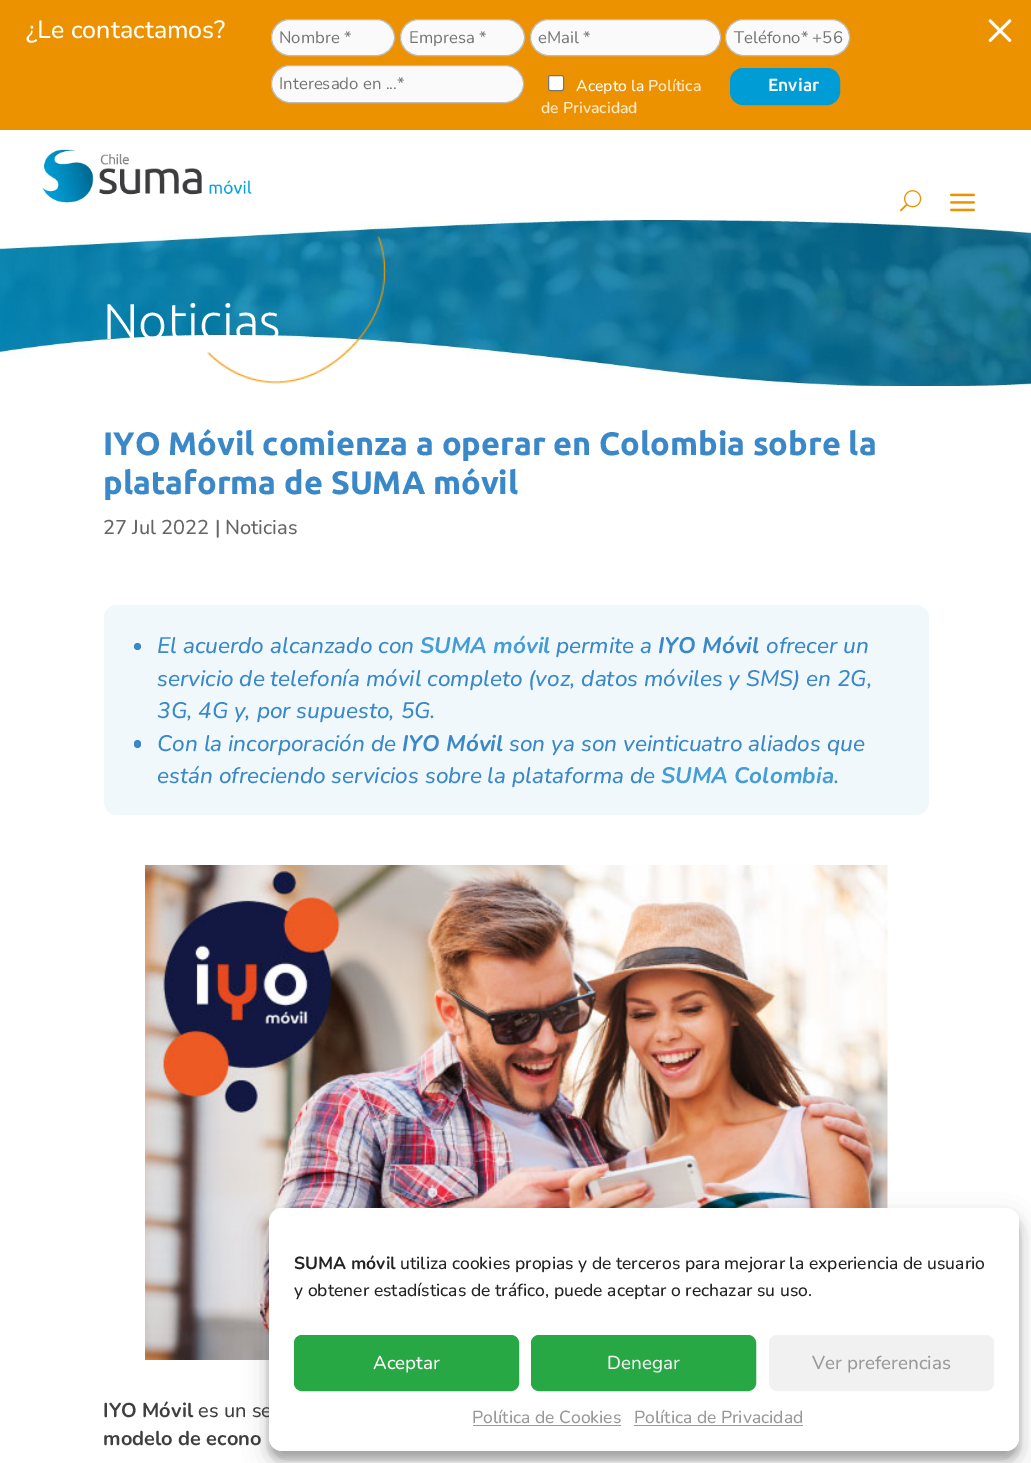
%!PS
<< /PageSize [1031 1463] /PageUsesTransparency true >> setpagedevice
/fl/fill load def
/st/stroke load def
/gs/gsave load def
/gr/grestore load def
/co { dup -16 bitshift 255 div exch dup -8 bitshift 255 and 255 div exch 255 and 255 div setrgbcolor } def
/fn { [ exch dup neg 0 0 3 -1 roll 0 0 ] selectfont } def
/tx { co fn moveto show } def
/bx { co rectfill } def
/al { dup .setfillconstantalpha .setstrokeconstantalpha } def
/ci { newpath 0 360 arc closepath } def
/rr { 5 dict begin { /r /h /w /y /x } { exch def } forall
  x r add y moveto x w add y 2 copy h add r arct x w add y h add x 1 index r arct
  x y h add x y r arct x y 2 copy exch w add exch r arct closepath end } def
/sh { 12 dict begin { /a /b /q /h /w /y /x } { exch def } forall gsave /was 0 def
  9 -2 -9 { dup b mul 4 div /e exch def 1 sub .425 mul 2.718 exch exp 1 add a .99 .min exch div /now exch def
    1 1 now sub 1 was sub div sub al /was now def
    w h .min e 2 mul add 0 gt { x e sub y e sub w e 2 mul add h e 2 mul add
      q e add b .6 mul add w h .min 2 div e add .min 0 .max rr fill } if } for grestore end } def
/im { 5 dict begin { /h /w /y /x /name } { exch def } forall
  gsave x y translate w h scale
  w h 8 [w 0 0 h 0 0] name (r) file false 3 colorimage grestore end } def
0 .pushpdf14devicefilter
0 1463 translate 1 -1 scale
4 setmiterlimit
0 0 1031 1463 16#FFFFFF bx
0 0 1031 130 16#EC9200 bx
16#FAFAFA co
271.5 19.5 123 36 18 rr gs fl gr
16#BBBBBB co
st
16#FAFAFA co
400.5 19.5 124 36 18 rr gs fl gr
16#BBBBBB co
st
16#FAFAFA co
530.5 19.5 190 36 18 rr gs fl gr
16#BBBBBB co
st
16#FAFAFA co
725.5 19.5 124 36 18 rr gs fl gr
16#BBBBBB co
st
16#FAFAFA co
271.5 65.5 252 37 18.5 rr gs fl gr
16#BBBBBB co
st
16#FFFFFF co
548.5 75.5 15 15 2 rr gs fl gr
16#767676 co
st
16#009CD6 co
730.5 68.5 109 36 12.5 rr gs fl gr
st
(media/1.raw) 988 19 24 23 im
(media/2.raw) 42 149 210 54 im
(media/3.raw) 900 190 22 22 im
(media/4.raw) 950 193 25 19 im
(media/5.raw) 0 220 1031 166 im
(media/6.raw) 207 236 180 148 im
16#F0F8FC co
104 605 825 210 13 rr fl
16#3B88C8 co
137.5 646.5 3.5 ci fl
134 740 7 8 3.5 rr fl
(media/7.raw) 145 865 743 495 im
16#000000 co
269 1215 750 244 13 4 .23 sh
269 1220 750 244 13 12.5 .19 sh
(¿Le contactamos?) 26 38 /Nunito-Medium 25 16#FFFFFF tx
(Nombre *) 279 43 /Nunito-Regular 16.75 16#757575 tx
(Empresa *) 409 43 /Nunito-Regular 16.75 16#757575 tx
(eMail *) 538 43 /Nunito-Regular 16.75 16#757575 tx
(Teléfono* +56) 734 43 /Nunito-Regular 16.75 16#757575 tx
(Interesado en ...*) 279 89 /Nunito-Regular 16.75 16#757575 tx
(Acepto la) 576 91 /Nunito-Medium 15.75 16#FFFFFF tx
(Política) 648 91 /Nunito-SemiBold 15.75 16#FBE9CC tx
(de Privacidad) 541 113 /Nunito-SemiBold 15.75 16#FBE9CC tx
(Enviar) 768 91 /Ubuntu-Medium 17.5 16#FFFFFF tx
(Noticias) 103 339 /Ubuntu-Light 50 16#FFFFFF tx
(IYO Móvil comienza a operar en Colombia sobre la) 103 455 /Ubuntu-Bold 32.5 16#3B88C8 tx
(plataforma de SUMA móvil) 103 494 /Ubuntu-Bold 32.5 16#3B88C8 tx
(27 Jul 2022 | Noticias) 103 534 /Nunito-Medium 20 16#666666 tx
(El acuerdo alcanzado con) 157 653 /Nunito-MediumItalic 22.5 16#3B88C8 tx
(SUMA móvil) 420 653 /Nunito-BoldItalic 22.5 16#449DD6 tx
(permite a) 556 653 /Nunito-MediumItalic 22.5 16#3B88C8 tx
(IYO Móvil) 658 653 /Nunito-BoldItalic 22.5 16#3B88C8 tx
(ofrecer un) 766 653 /Nunito-MediumItalic 22.5 16#3B88C8 tx
(servicio de telefonía móvil completo \(voz, datos móviles y SMS\) en 2G,) 157 686 /Nunito-MediumItalic 22.5 16#3B88C8 tx
(3G, 4G y, por supuesto, 5G.) 157 718 /Nunito-MediumItalic 22.5 16#3B88C8 tx
(Con la incorporación de) 157 751 /Nunito-MediumItalic 22.5 16#3B88C8 tx
(IYO Móvil) 402 751 /Nunito-BoldItalic 22.5 16#3B88C8 tx
(son ya son veinticuatro aliados que) 509 751 /Nunito-MediumItalic 22.5 16#3B88C8 tx
(están ofreciendo servicios sobre la plataforma de) 157 783 /Nunito-MediumItalic 22.5 16#3B88C8 tx
(SUMA Colombia) 661 783 /Nunito-BoldItalic 22.5 16#449DD6 tx
(.) 834 783 /Nunito-MediumItalic 22.5 16#3B88C8 tx
(IYO Móvil) 103 1417 /Nunito-Bold 20 16#3F3F3F tx
(es un se) 198 1417 /Nunito-Medium 20 16#3F3F3F tx
(modelo de econo) 103 1445 /Nunito-Bold 20 16#3F3F3F tx
16#FFFFFF co
269 1208 750 243 13 rr fl
(SUMA móvil) 294 1269 /Nunito-Bold 17.5 16#222222 tx
(utiliza cookies propias y de terceros para mejorar la experiencia de usuario) 400 1269 /Nunito-Medium 17.5 16#222222 tx
(y obtener estadísticas de tráfico, puede aceptar o rechazar su uso.) 294 1296 /Nunito-Medium 17.5 16#222222 tx
16#28A745 co
294.5 1335.5 224 55 7.5 rr gs fl gr
st
(Aceptar) 373 1369 /Nunito-Medium 18.75 16#FFFFFF tx
16#28A745 co
531.5 1335.5 224 55 7.5 rr gs fl gr
st
(Denegar) 607 1369 /Nunito-Medium 18.75 16#F2F2F2 tx
16#F1F1F1 co
769.5 1335.5 224 55 7.5 rr gs fl gr
16#F2F2F2 co
st
(Ver preferencias) 812 1369 /Nunito-Medium 18.75 16#999999 tx
(Política de Cookies) 472 1423 /Nunito-Medium 17.5 16#999999 tx
473 1425 148 1 16#999999 bx
(Política de Privacidad) 634 1423 /Nunito-Medium 17.5 16#999999 tx
634 1425 169 1 16#999999 bx
.poppdf14devicefilter showpage
